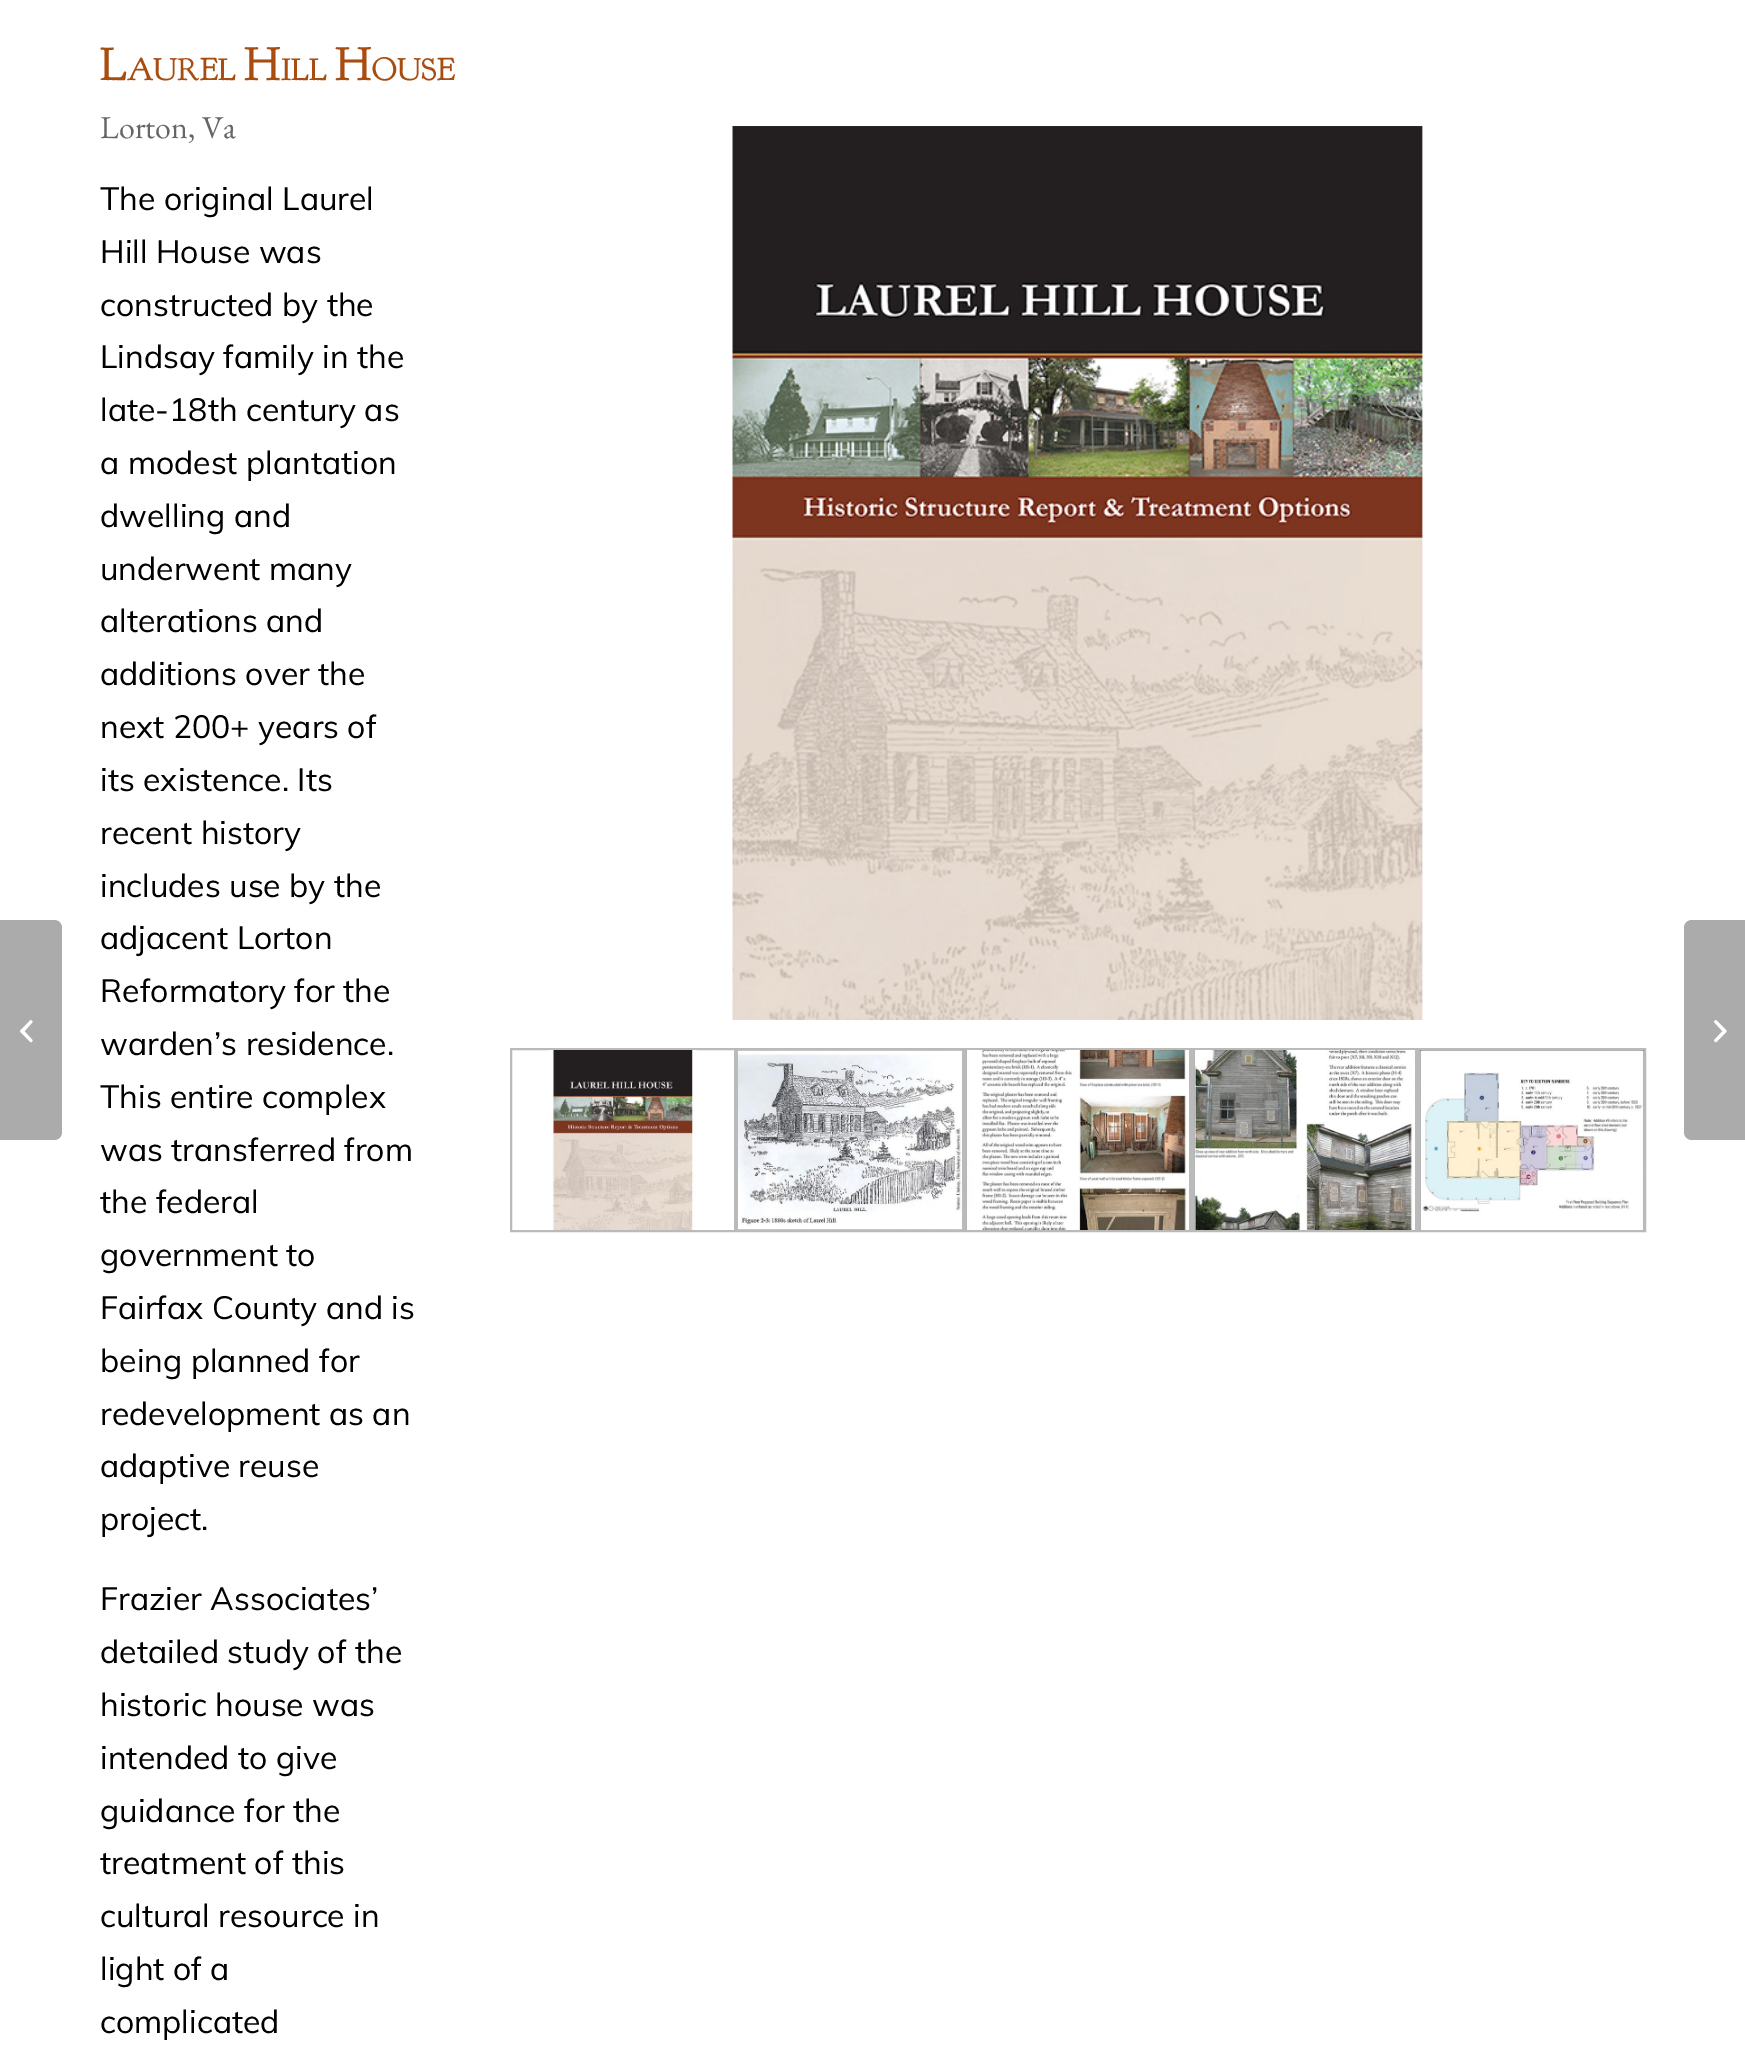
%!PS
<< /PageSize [1745 2058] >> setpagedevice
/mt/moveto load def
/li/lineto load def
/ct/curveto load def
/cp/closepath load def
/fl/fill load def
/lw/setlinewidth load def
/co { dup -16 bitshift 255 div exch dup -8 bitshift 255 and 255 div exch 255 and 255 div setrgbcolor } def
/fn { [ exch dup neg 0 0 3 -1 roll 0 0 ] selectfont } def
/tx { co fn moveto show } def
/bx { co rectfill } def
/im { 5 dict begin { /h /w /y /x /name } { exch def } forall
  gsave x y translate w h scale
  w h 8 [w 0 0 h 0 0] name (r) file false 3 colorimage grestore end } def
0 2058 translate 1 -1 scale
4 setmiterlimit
0 0 1745 2058 16#FFFFFF bx
16#ABABAB co
0 920 mt 54 920 li 58.5 920 62 923.5 62 928 ct 62 1132 li 62 1136.5 58.5 1140 54 1140 ct 0 1140 li cp fl
(media/1.raw) 20 1020 13 23 im
(media/2.raw) 732 126 691 894 im
16#BABABA co
2 lw
511 1049 224 182 rectstroke
(media/3.raw) 548 1050 149 180 im
737 1049 226 182 rectstroke
(media/4.raw) 738 1050 224 180 im
965 1049 226 182 rectstroke
(media/5.raw) 966 1050 224 180 im
1193 1049 224 182 rectstroke
(media/6.raw) 1194 1050 222 180 im
1419 1049 226 182 rectstroke
(media/7.raw) 1420 1050 224 180 im
16#ABABAB co
1692 920 mt 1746 920 li 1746 1140 li 1692 1140 li 1687.5 1140 1684 1136.5 1684 1132 ct 1684 928 li 1684 923.5 1687.5 920 1692 920 ct cp fl
(media/8.raw) 1714 1020 13 23 im
(L) 100 80 /GoudyBookletter1911-Regular 48 16#A84C0F tx
(AUREL) 127 80 /GoudyBookletter1911-Regular 32 16#A84C0F tx
(H) 244 80 /GoudyBookletter1911-Regular 48 16#A84C0F tx
(ILL) 281 80 /GoudyBookletter1911-Regular 32 16#A84C0F tx
(H) 335 80 /GoudyBookletter1911-Regular 48 16#A84C0F tx
(OUSE) 372 80 /GoudyBookletter1911-Regular 32 16#A84C0F tx
(Lorton, Va) 100 138 /EBGaramond-Regular 32 16#666666 tx
(The original Laurel) 100 210 /Muli-Regular 32 16#000000 tx
(Hill House was) 100 263 /Muli-Regular 32 16#000000 tx
(constructed by the) 100 316 /Muli-Regular 32 16#000000 tx
(Lindsay family in the) 100 368 /Muli-Regular 32 16#000000 tx
(late-18th century as) 100 421 /Muli-Regular 32 16#000000 tx
(a modest plantation) 100 474 /Muli-Regular 32 16#000000 tx
(dwelling and) 100 527 /Muli-Regular 32 16#000000 tx
(underwent many) 100 580 /Muli-Regular 32 16#000000 tx
(alterations and) 100 632 /Muli-Regular 32 16#000000 tx
(additions over the) 100 685 /Muli-Regular 32 16#000000 tx
(next 200+ years of) 100 738 /Muli-Regular 32 16#000000 tx
(its existence. Its) 100 791 /Muli-Regular 32 16#000000 tx
(recent history) 100 844 /Muli-Regular 32 16#000000 tx
(includes use by the) 100 897 /Muli-Regular 32 16#000000 tx
(adjacent Lorton) 100 949 /Muli-Regular 32 16#000000 tx
(Reformatory for the) 100 1002 /Muli-Regular 32 16#000000 tx
(warden’s residence.) 100 1055 /Muli-Regular 32 16#000000 tx
(This entire complex) 100 1108 /Muli-Regular 32 16#000000 tx
(was transferred from) 100 1161 /Muli-Regular 32 16#000000 tx
(the federal) 100 1213 /Muli-Regular 32 16#000000 tx
(government to) 100 1266 /Muli-Regular 32 16#000000 tx
(Fairfax County and is) 100 1319 /Muli-Regular 32 16#000000 tx
(being planned for) 100 1372 /Muli-Regular 32 16#000000 tx
(redevelopment as an) 100 1425 /Muli-Regular 32 16#000000 tx
(adaptive reuse) 100 1477 /Muli-Regular 32 16#000000 tx
(project.) 100 1530 /Muli-Regular 32 16#000000 tx
(Frazier Associates’) 100 1610 /Muli-Regular 32 16#000000 tx
(detailed study of the) 100 1663 /Muli-Regular 32 16#000000 tx
(historic house was) 100 1716 /Muli-Regular 32 16#000000 tx
(intended to give) 100 1769 /Muli-Regular 32 16#000000 tx
(guidance for the) 100 1822 /Muli-Regular 32 16#000000 tx
(treatment of this) 100 1874 /Muli-Regular 32 16#000000 tx
(cultural resource in) 100 1927 /Muli-Regular 32 16#000000 tx
(light of a) 100 1980 /Muli-Regular 32 16#000000 tx
(complicated) 100 2033 /Muli-Regular 32 16#000000 tx
showpage
